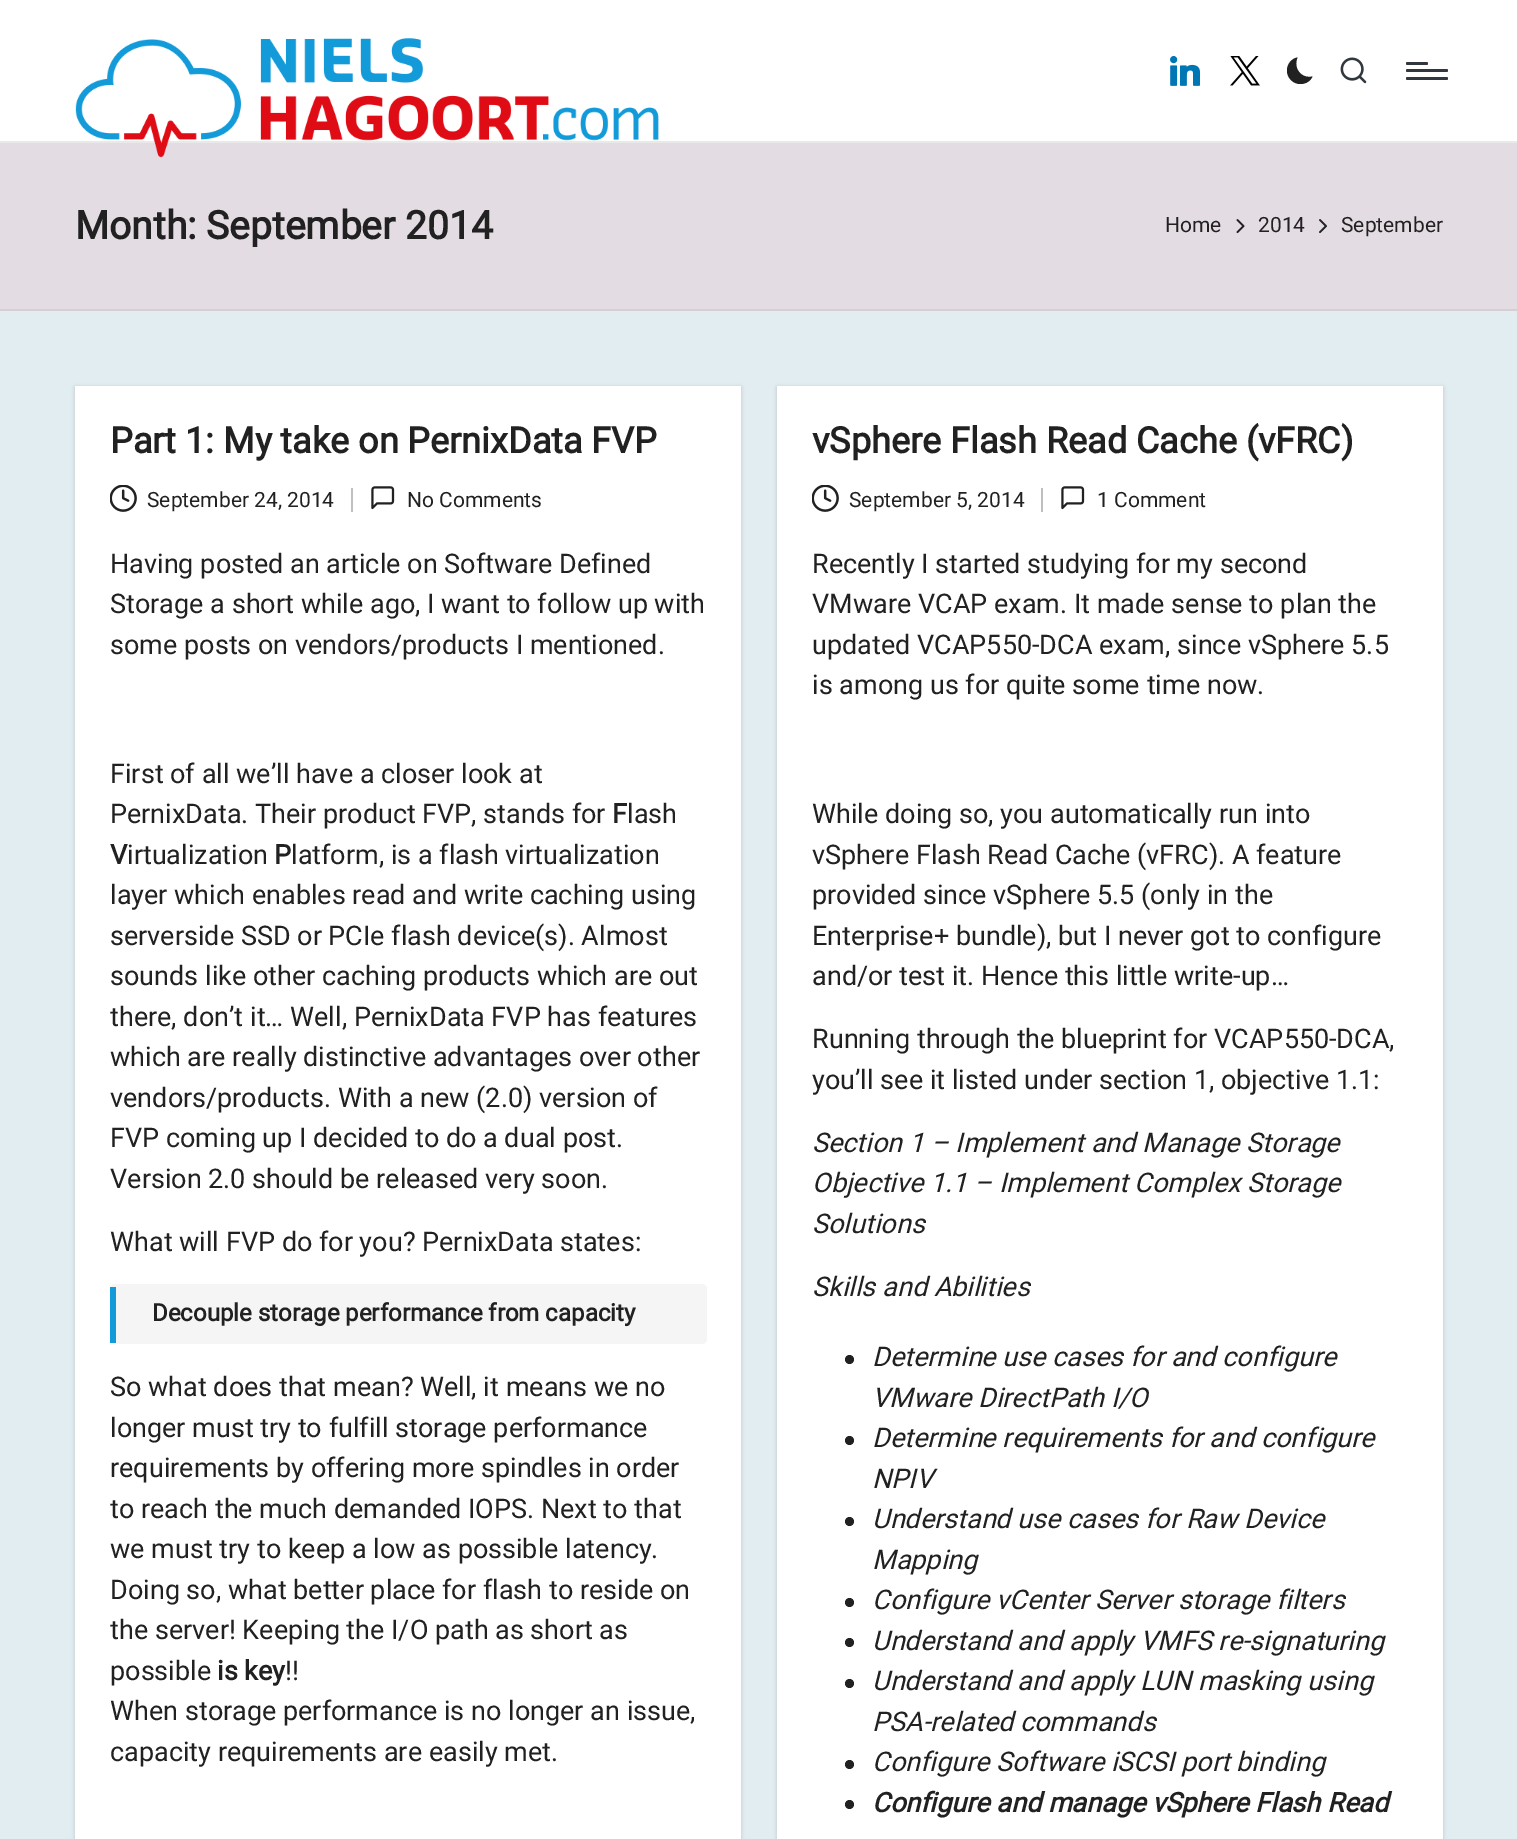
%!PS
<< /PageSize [1517 1839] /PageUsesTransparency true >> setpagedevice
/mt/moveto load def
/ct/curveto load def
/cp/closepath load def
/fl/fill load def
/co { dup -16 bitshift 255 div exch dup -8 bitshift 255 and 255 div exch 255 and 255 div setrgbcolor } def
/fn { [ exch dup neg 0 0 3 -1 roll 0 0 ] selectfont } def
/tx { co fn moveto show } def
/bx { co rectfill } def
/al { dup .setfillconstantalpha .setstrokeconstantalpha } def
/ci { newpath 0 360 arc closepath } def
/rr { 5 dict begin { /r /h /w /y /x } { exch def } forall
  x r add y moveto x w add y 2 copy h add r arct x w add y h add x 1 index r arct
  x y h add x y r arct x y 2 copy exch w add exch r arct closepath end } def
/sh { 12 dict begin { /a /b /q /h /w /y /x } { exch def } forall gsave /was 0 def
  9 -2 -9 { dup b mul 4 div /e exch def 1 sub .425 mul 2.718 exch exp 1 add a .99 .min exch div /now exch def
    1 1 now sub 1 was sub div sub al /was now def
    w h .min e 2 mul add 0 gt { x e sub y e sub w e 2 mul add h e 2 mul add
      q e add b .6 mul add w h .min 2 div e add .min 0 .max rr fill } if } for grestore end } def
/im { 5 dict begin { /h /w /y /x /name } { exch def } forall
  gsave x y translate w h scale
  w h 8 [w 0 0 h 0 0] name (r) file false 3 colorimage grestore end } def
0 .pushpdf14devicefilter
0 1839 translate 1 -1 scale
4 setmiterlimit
0 0 1517 1839 16#E2EDF2 bx
0 0 1517 141 16#FFFFFF bx
0 141 1517 2 16#E9E9E9 bx
0 143 1517 166 16#E4DCE3 bx
(media/1.raw) 75 38 584 120 im
(media/2.raw) 1170 56 31 30 im
(media/3.raw) 1230 56 30 30 im
16#212121 co
1312.5 76.5 mt 1301 79 1293 68 1297.5 57.5 ct 1291.5 58.5 1287 64 1287 70.5 ct 1287 78 1293 84 1300.5 84 ct 1306 84 1310.5 81 1312.5 76.5 ct cp fl
(media/4.raw) 1340 57 27 27 im
16#30373E co
1406 69 42 3 1.5 rr fl
1406 62 22 3 1.5 rr fl
1406 77 42 3 1.5 rr fl
0 309 1517 2 16#D6CED5 bx
(media/5.raw) 1236 219 9 15 im
(media/6.raw) 1319 219 8 14 im
16#000000 co
75 387 666 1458 0 2 .18 sh
75 386 666 1453 16#FFFFFF bx
(media/7.raw) 110 485 27 27 im
351 488 2 24 16#BFBFBF bx
(media/8.raw) 371 486 24 24 im
16#F5F5F5 co
110 1284 597 60 5 rr fl
110 1287 6 56 16#139AD9 bx
16#000000 co
777 387 666 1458 0 2 .18 sh
777 386 666 1453 16#FFFFFF bx
(media/7.raw) 812 485 27 27 im
1041 488 2 24 16#BFBFBF bx
(media/8.raw) 1061 486 24 24 im
16#212121 co
849.5 1359.5 4.5 ci fl
849.5 1440.5 4.5 ci fl
849.5 1521.5 4.5 ci fl
849.5 1602.5 4.5 ci fl
849.5 1642.5 4.5 ci fl
849.5 1683.5 4.5 ci fl
849.5 1764.5 4.5 ci fl
849.5 1804.5 4.5 ci fl
(Month: September 2014) 75 239 /Roboto-Bold 39 16#212121 tx
(Home) 1165 232 /Roboto-Regular 21 16#212121 tx
(2014) 1258 232 /Roboto-Regular 21 16#212121 tx
(September) 1341 232 /Roboto-Regular 21 16#212121 tx
(Part 1: My take on PernixData FVP) 110 453 /Roboto-Bold 36 16#212121 tx
(September 24, 2014) 147 507 /Roboto-Regular 21 16#212121 tx
(No Comments) 407 507 /Roboto-Regular 21 16#212121 tx
(Having posted an article on Software Defined) 110 573 /Roboto-Regular 27 16#212121 tx
(Storage a short while ago, I want to follow up with) 110 613 /Roboto-Regular 27 16#212121 tx
(some posts on vendors/products I mentioned.) 110 654 /Roboto-Regular 27 16#212121 tx
(First of all we’ll have a closer look at) 110 783 /Roboto-Regular 27 16#212121 tx
(PernixData. Their product FVP, stands for) 110 823 /Roboto-Regular 27 16#212121 tx
(F) 612 823 /Roboto-Bold 27 16#212121 tx
(lash) 627 823 /Roboto-Regular 27 16#212121 tx
(V) 110 864 /Roboto-Bold 27 16#212121 tx
(irtualization) 127 864 /Roboto-Regular 27 16#212121 tx
(P) 274 864 /Roboto-Bold 27 16#212121 tx
(latform, is a flash virtualization) 291 864 /Roboto-Regular 27 16#212121 tx
(layer which enables read and write caching using) 110 904 /Roboto-Regular 27 16#212121 tx
(serverside SSD or PCIe flash device\(s\). Almost) 110 945 /Roboto-Regular 27 16#212121 tx
(sounds like other caching products which are out) 110 985 /Roboto-Regular 27 16#212121 tx
(there, don’t it… Well, PernixData FVP has features) 110 1026 /Roboto-Regular 27 16#212121 tx
(which are really distinctive advantages over other) 110 1066 /Roboto-Regular 27 16#212121 tx
(vendors/products. With a new \(2.0\) version of) 110 1107 /Roboto-Regular 27 16#212121 tx
(FVP coming up I decided to do a dual post.) 110 1147 /Roboto-Regular 27 16#212121 tx
(Version 2.0 should be released very soon.) 110 1188 /Roboto-Regular 27 16#212121 tx
(What will FVP do for you? PernixData states:) 110 1251 /Roboto-Regular 27 16#212121 tx
(Decouple storage performance from capacity) 152 1321 /Roboto-Bold 24 16#212121 tx
(So what does that mean? Well, it means we no) 110 1396 /Roboto-Regular 27 16#212121 tx
(longer must try to fulfill storage performance) 110 1437 /Roboto-Regular 27 16#212121 tx
(requirements by offering more spindles in order) 110 1477 /Roboto-Regular 27 16#212121 tx
(to reach the much demanded IOPS. Next to that) 110 1518 /Roboto-Regular 27 16#212121 tx
(we must try to keep a low as possible latency.) 110 1558 /Roboto-Regular 27 16#212121 tx
(Doing so, what better place for flash to reside on) 110 1599 /Roboto-Regular 27 16#212121 tx
(the server! Keeping the I/O path as short as) 110 1639 /Roboto-Regular 27 16#212121 tx
(possible) 110 1680 /Roboto-Regular 27 16#212121 tx
(is key) 217 1680 /Roboto-Bold 27 16#212121 tx
(!!) 285 1680 /Roboto-Regular 27 16#212121 tx
(When storage performance is no longer an issue,) 110 1720 /Roboto-Regular 27 16#212121 tx
(capacity requirements are easily met.) 110 1761 /Roboto-Regular 27 16#212121 tx
(vSphere Flash Read Cache \(vFRC\)) 812 453 /Roboto-Bold 36 16#212121 tx
(September 5, 2014) 849 507 /Roboto-Regular 21 16#212121 tx
(1 Comment) 1097 507 /Roboto-Regular 21 16#212121 tx
(Recently I started studying for my second) 812 573 /Roboto-Regular 27 16#212121 tx
(VMware VCAP exam. It made sense to plan the) 812 613 /Roboto-Regular 27 16#212121 tx
(updated VCAP550-DCA exam, since vSphere 5.5) 812 654 /Roboto-Regular 27 16#212121 tx
(is among us for quite some time now.) 812 694 /Roboto-Regular 27 16#212121 tx
(While doing so, you automatically run into) 812 823 /Roboto-Regular 27 16#212121 tx
(vSphere Flash Read Cache \(vFRC\). A feature) 812 864 /Roboto-Regular 27 16#212121 tx
(provided since vSphere 5.5 \(only in the) 812 904 /Roboto-Regular 27 16#212121 tx
(Enterprise+ bundle\), but I never got to configure) 812 945 /Roboto-Regular 27 16#212121 tx
(and/or test it. Hence this little write-up…) 812 985 /Roboto-Regular 27 16#212121 tx
(Running through the blueprint for VCAP550-DCA,) 812 1048 /Roboto-Regular 27 16#212121 tx
(you’ll see it listed under section 1, objective 1.1:) 812 1089 /Roboto-Regular 27 16#212121 tx
(Section 1 – Implement and Manage Storage) 812 1152 /Roboto-Italic 27 16#212121 tx
(Objective 1.1 – Implement Complex Storage) 812 1192 /Roboto-Italic 27 16#212121 tx
(Solutions) 812 1233 /Roboto-Italic 27 16#212121 tx
(Skills and Abilities) 812 1296 /Roboto-Italic 27 16#212121 tx
(Determine use cases for and configure) 872 1366 /Roboto-Italic 27 16#212121 tx
(VMware DirectPath I/O) 872 1407 /Roboto-Italic 27 16#212121 tx
(Determine requirements for and configure) 872 1447 /Roboto-Italic 27 16#212121 tx
(NPIV) 872 1488 /Roboto-Italic 27 16#212121 tx
(Understand use cases for Raw Device) 872 1528 /Roboto-Italic 27 16#212121 tx
(Mapping) 872 1569 /Roboto-Italic 27 16#212121 tx
(Configure vCenter Server storage filters) 872 1609 /Roboto-Italic 27 16#212121 tx
(Understand and apply VMFS re-signaturing) 872 1650 /Roboto-Italic 27 16#212121 tx
(Understand and apply LUN masking using) 872 1690 /Roboto-Italic 27 16#212121 tx
(PSA-related commands) 872 1731 /Roboto-Italic 27 16#212121 tx
(Configure Software iSCSI port binding) 872 1771 /Roboto-Italic 27 16#212121 tx
(Configure and manage vSphere Flash Read) 872 1812 /Roboto-BoldItalic 27 16#212121 tx
.poppdf14devicefilter showpage
